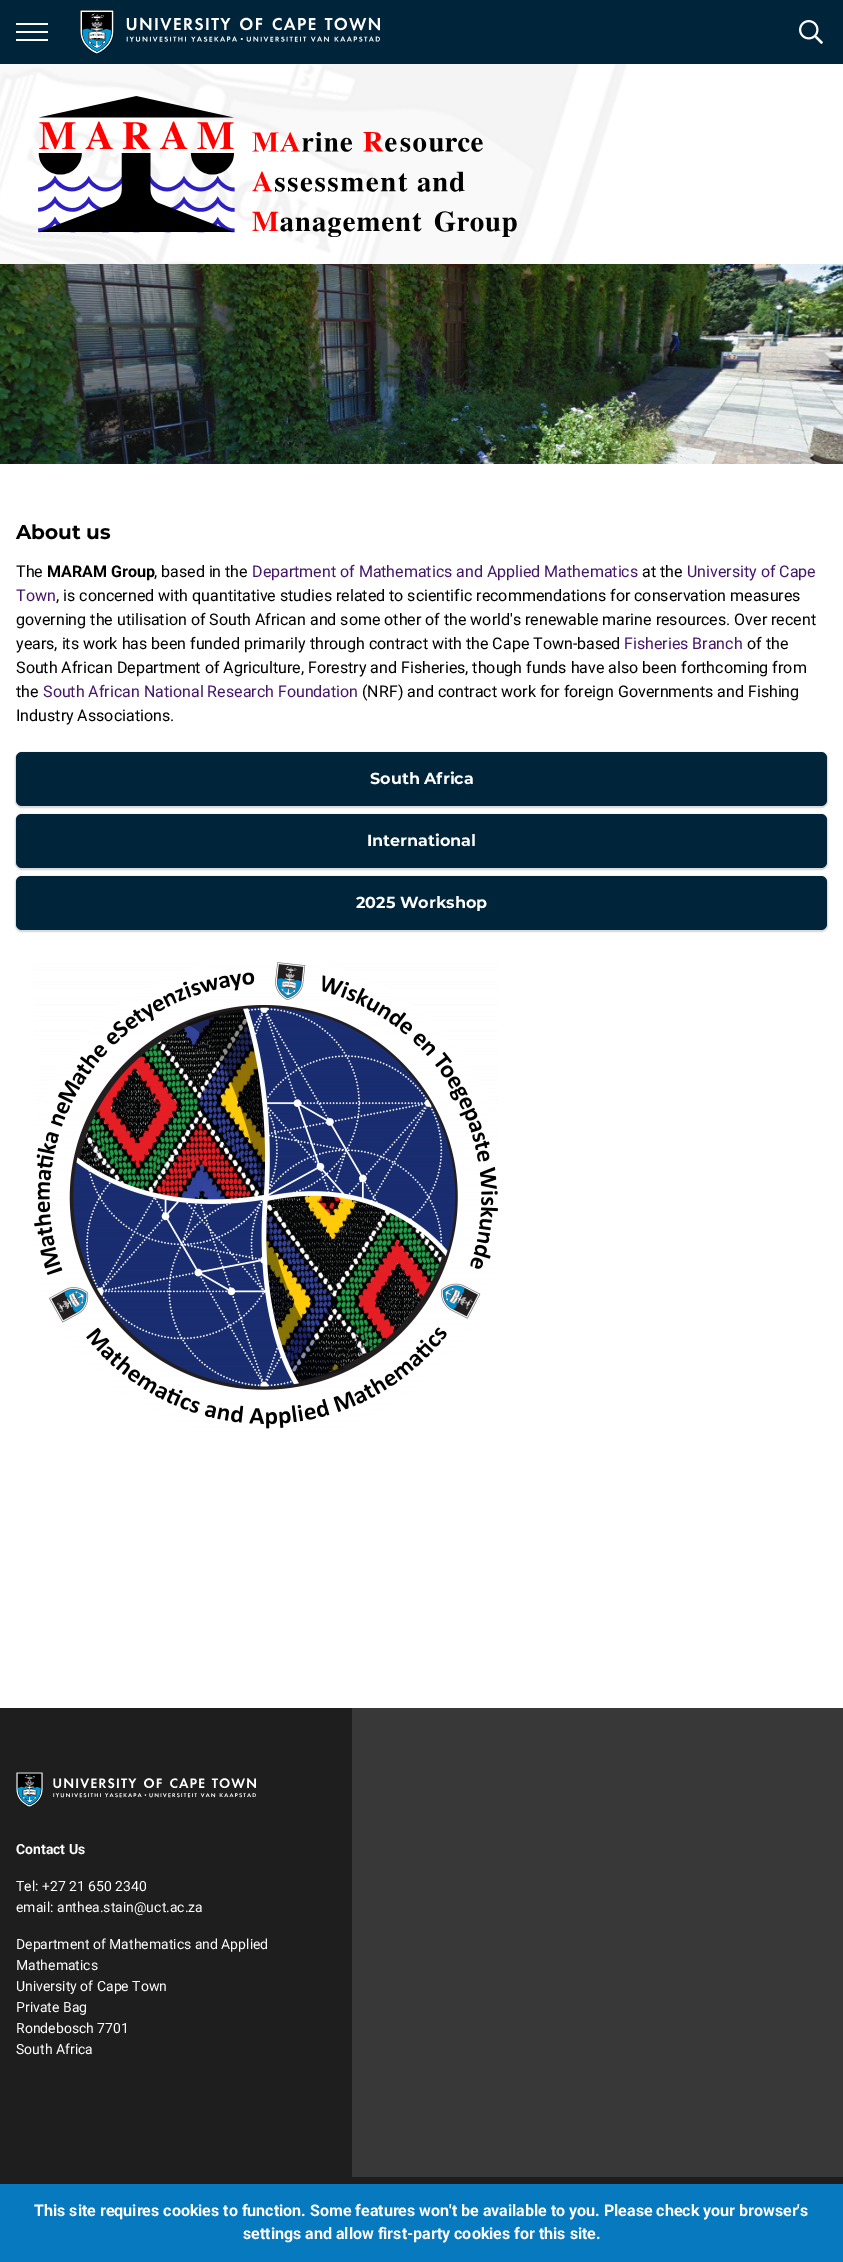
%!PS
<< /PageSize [843 2262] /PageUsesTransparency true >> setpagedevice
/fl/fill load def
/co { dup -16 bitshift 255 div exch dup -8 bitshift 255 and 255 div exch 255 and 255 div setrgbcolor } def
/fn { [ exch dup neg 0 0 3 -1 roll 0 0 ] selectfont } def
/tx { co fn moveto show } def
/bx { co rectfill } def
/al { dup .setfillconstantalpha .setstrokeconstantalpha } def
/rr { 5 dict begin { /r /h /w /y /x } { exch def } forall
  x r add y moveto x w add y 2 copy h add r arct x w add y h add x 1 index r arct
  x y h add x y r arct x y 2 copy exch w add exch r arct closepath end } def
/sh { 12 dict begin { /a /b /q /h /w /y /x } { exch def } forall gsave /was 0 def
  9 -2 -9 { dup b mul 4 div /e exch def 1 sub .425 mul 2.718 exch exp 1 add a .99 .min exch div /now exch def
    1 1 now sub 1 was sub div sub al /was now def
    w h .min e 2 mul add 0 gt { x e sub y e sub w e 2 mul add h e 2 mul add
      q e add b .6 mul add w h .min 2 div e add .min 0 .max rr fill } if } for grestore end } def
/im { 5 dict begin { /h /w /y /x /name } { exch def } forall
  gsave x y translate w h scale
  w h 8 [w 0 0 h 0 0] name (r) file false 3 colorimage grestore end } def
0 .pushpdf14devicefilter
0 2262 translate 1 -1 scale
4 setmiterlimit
0 0 843 2262 16#FFFFFF bx
0 0 843 64 16#00243A bx
16 23 32 2 16#FFFFFF bx
16 31 32 2 16#FFFFFF bx
16 39 32 2 16#FFFFFF bx
(media/1.raw) 80 10 300 44 im
(media/2.raw) 799 20 24 24 im
(media/3.raw) 0 64 627 200 im
(media/4.raw) 38 96 479 141 im
(media/5.raw) 0 264 843 200 im
16#000000 co
15 752 813 56 7 .5 .15 sh
16#00243A co
16 752 811 54 6 rr fl
16#000000 co
15 814 813 56 7 .5 .15 sh
16#00243A co
16 814 811 54 6 rr fl
16#000000 co
15 876 813 56 7 .5 .15 sh
16#00243A co
16 876 811 54 6 rr fl
(media/6.raw) 34 962 464 467 im
352 1708 491 469 16#383838 bx
0 1708 352 469 16#1E1E1E bx
(media/7.raw) 16 1772 240 35 im
0 2177 843 7 16#1E1E1E bx
0 2184 843 78 16#0779BF bx
(About us) 16 539 /Montserrat-Bold 20 16#000000 tx
(The) 16 577 /Roboto-Regular 16 16#000000 tx
(MARAM Group) 47 577 /Roboto-Bold 16 16#000000 tx
(, based in the) 154 577 /Roboto-Regular 16 16#000000 tx
(Department of Mathematics and Applied Mathematics) 252 577 /Roboto-Regular 16 16#46166B tx
(at the) 642 577 /Roboto-Regular 16 16#000000 tx
(University of Cape) 687 577 /Roboto-Regular 16 16#46166B tx
(Town) 16 601 /Roboto-Regular 16 16#46166B tx
(, is concerned with quantitative studies related to scientific recommendations for conservation measures) 56 601 /Roboto-Regular 16 16#000000 tx
(governing the utilisation of South African and some other of the world's renewable marine resources. Over recent) 16 625 /Roboto-Regular 16 16#000000 tx
(years, its work has been funded primarily through contract with the Cape Town-based) 16 649 /Roboto-Regular 16 16#000000 tx
(Fisheries Branch) 624 649 /Roboto-Regular 16 16#46166B tx
(of the) 747 649 /Roboto-Regular 16 16#000000 tx
(South African Department of Agriculture, Forestry and Fisheries, though funds have also been forthcoming from) 16 673 /Roboto-Regular 16 16#000000 tx
(the) 16 697 /Roboto-Regular 16 16#000000 tx
(South African National Research Foundation) 43 697 /Roboto-Regular 16 16#46166B tx
(\(NRF\) and contract work for foreign Governments and Fishing) 362 697 /Roboto-Regular 16 16#000000 tx
(Industry Associations.) 16 721 /Roboto-Regular 16 16#000000 tx
(South Africa) 370 784 /Montserrat-Bold 16 16#FFFFFF tx
(International) 367 846 /Montserrat-Bold 16 16#FFFFFF tx
(2025 Workshop) 356 908 /Montserrat-Bold 16 16#FFFFFF tx
(Contact Us) 16 1854 /Roboto-Bold 14 16#FFFFFF tx
(Tel: +27 21 650 2340) 16 1891 /Roboto-Regular 14 16#FFFFFF tx
(email: anthea.stain@uct.ac.za) 16 1912 /Roboto-Regular 14 16#FFFFFF tx
(Department of Mathematics and Applied) 16 1949 /Roboto-Regular 14 16#FFFFFF tx
(Mathematics) 16 1970 /Roboto-Regular 14 16#FFFFFF tx
(University of Cape Town) 16 1991 /Roboto-Regular 14 16#FFFFFF tx
(Private Bag) 16 2012 /Roboto-Regular 14 16#FFFFFF tx
(Rondebosch 7701) 16 2033 /Roboto-Regular 14 16#FFFFFF tx
(South Africa) 16 2054 /Roboto-Regular 14 16#FFFFFF tx
(This site requires cookies to function. Some features won't be available to you. Please check your browser's) 34 2216 /Roboto-Bold 16 16#FFFFFF tx
(settings and allow first-party cookies for this site.) 243 2239 /Roboto-Bold 16 16#FFFFFF tx
.poppdf14devicefilter showpage
